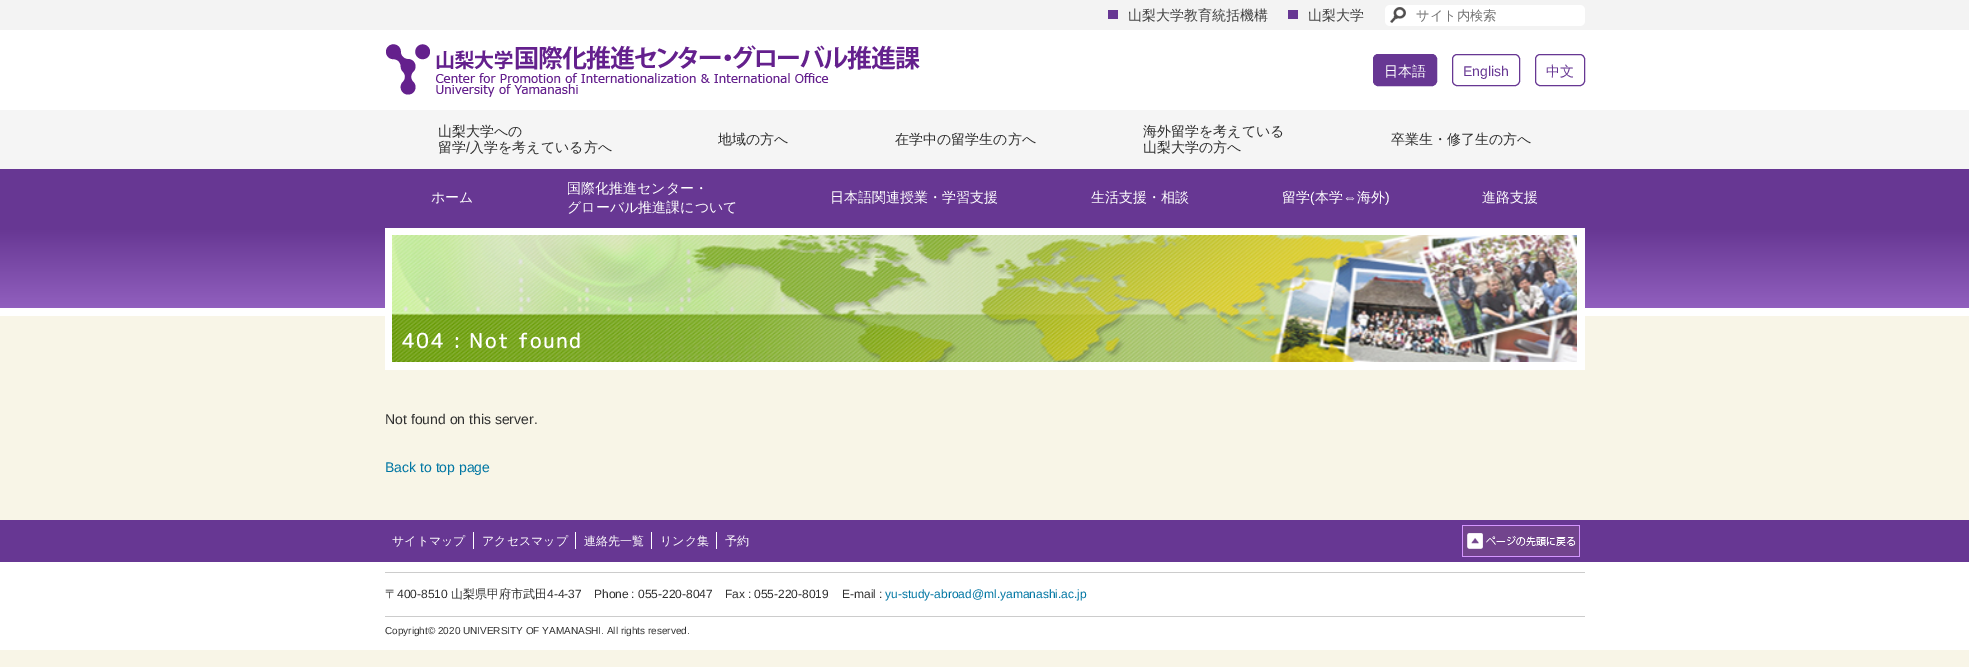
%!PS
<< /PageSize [1969 667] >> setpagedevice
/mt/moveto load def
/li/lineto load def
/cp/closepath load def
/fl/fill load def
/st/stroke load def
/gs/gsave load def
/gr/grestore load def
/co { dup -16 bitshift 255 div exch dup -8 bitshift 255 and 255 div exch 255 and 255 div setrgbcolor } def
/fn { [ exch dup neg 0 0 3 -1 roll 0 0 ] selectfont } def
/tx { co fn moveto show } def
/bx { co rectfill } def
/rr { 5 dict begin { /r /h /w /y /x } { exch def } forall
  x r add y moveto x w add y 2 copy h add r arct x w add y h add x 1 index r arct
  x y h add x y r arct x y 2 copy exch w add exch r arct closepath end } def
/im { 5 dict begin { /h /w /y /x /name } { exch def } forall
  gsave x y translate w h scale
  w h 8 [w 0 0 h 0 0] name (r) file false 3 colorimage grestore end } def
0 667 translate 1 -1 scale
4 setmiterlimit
0 0 1969 667 16#F8F5E7 bx
0 30 1969 80 16#FFFFFF bx
0 0 1969 30 16#F3F3F3 bx
1108 10 10 9 16#673793 bx
1288 10 10 9 16#673793 bx
16#FFFFFF co
1385 5 200 21 5 rr fl
(media/1.raw) 1390 7 16 16 im
(media/2.raw) 386 44 534 53 im
16#673793 co
1373.5 54.5 63 31 4.5 rr gs fl gr
st
1452.5 54.5 67 31 4.5 rr st
1535.5 54.5 49 31 4.5 rr st
0 110 1969 59 16#F5F5F5 bx
0 169 1969 59 16#673793 bx
gs 0 228 mt 1969 228 li 1969 317 li 0 317 li cp clip newpath
<< /ShadingType 2 /ColorSpace /DeviceRGB /Coords [985 228 985 505] /Extend [true true] /Function << /FunctionType 3 /Domain [0 1] /Functions [<< /FunctionType 2 /Domain [0 1] /C0 [.404 .216 .576] /C1 [.569 .376 .745] /N 1 >> << /FunctionType 2 /Domain [0 1] /C0 [1 1 1] /C1 [1 1 1] /N 1 >> << /FunctionType 2 /Domain [0 1] /C0 [.973 .961 .906] /C1 [.973 .961 .906] /N 1 >>] /Bounds [.29 .32] /Encode [0 1 0 1 0 1] >> >> shfill gr
385 228 1200 142 16#FFFFFF bx
(media/3.raw) 392 235 1185 127 im
0 562 1969 88 16#FFFFFF bx
0 520 1969 42 16#673793 bx
473 532 1 17 16#FFFFFF bx
575 532 1 17 16#FFFFFF bx
651 532 1 17 16#FFFFFF bx
716 532 1 17 16#FFFFFF bx
(media/4.raw) 1462 525 118 32 im
385 572 1200 1 16#CCCCCC bx
385 616 1200 1 16#CCCCCC bx
(山梨大学教育統括機構) 1128 20 /WenQuanYiZenHei-Medium 14 16#434343 tx
(山梨大学) 1308 20 /WenQuanYiZenHei-Medium 14 16#434343 tx
(サイト内検索) 1416 20 /WenQuanYiZenHei-Medium 13.25 16#757575 tx
(日本語) 1384 76 /WenQuanYiZenHei-Medium 14 16#FFFFFF tx
(English) 1463 76 /LiberationSans-Regular 14 16#673793 tx
(中文) 1546 76 /WenQuanYiZenHei-Medium 14 16#673793 tx
(山梨大学への) 438 136 /WenQuanYiZenHei-Medium 14 16#303030 tx
(留学) 438 152 /WenQuanYiZenHei-Medium 14 16#303030 tx
(/) 466 152 /LiberationSans-Regular 14 16#303030 tx
(入学を考えている方へ) 470 152 /WenQuanYiZenHei-Medium 14 16#303030 tx
(地域の方へ) 718 144 /WenQuanYiZenHei-Medium 14 16#303030 tx
(在学中の留学生の方へ) 895 144 /WenQuanYiZenHei-Medium 14 16#303030 tx
(海外留学を考えている) 1143 136 /WenQuanYiZenHei-Medium 14 16#303030 tx
(山梨大学の方へ) 1143 152 /WenQuanYiZenHei-Medium 14 16#303030 tx
(卒業生・修了生の方へ) 1391 144 /WenQuanYiZenHei-Medium 14 16#303030 tx
(ホーム) 431 202 /WenQuanYiZenHei-Medium 14 16#FFFFFF tx
(国際化推進センター・) 567 193 /WenQuanYiZenHei-Medium 14 16#FFFFFF tx
(グローバル推進課について) 567 212 /WenQuanYiZenHei-Medium 14 16#FFFFFF tx
(日本語関連授業・学習支援) 830 202 /WenQuanYiZenHei-Medium 14 16#FFFFFF tx
(生活支援・相談) 1091 202 /WenQuanYiZenHei-Medium 14 16#FFFFFF tx
(留学) 1282 202 /WenQuanYiZenHei-Medium 14 16#FFFFFF tx
(\() 1310 202 /LiberationSans-Regular 14 16#FFFFFF tx
(本学) 1315 202 /WenQuanYiZenHei-Medium 14 16#FFFFFF tx
(⇔) 1343 202 /LiberationSans-Regular 14 16#FFFFFF tx
(海外) 1357 202 /WenQuanYiZenHei-Medium 14 16#FFFFFF tx
(\)) 1385 202 /LiberationSans-Regular 14 16#FFFFFF tx
(進路支援) 1482 202 /WenQuanYiZenHei-Medium 14 16#FFFFFF tx
/RoundedMplus1c-Bold 20 fn
402 348 mt 2 0 (404 : Not found) ashow
(Not found on this server.) 385 424 /LiberationSans-Regular 14 16#303030 tx
(Back to top page) 385 472 /LiberationSans-Regular 14 16#0076A3 tx
(サイトマップ) 392 545 /WenQuanYiZenHei-Medium 12 16#FFFFFF tx
(アクセスマップ) 482 545 /WenQuanYiZenHei-Medium 12 16#FFFFFF tx
(連絡先一覧) 584 545 /WenQuanYiZenHei-Medium 12 16#FFFFFF tx
(リンク集) 660 545 /WenQuanYiZenHei-Medium 12 16#FFFFFF tx
(予約) 725 545 /WenQuanYiZenHei-Medium 12 16#FFFFFF tx
(〒) 385 598 /WenQuanYiZenHei-Medium 12 16#303030 tx
(400-8510) 397 598 /LiberationSans-Regular 12 16#303030 tx
(山梨県甲府市武田) 451 598 /WenQuanYiZenHei-Medium 12 16#303030 tx
(4-4-37) 547 598 /LiberationSans-Regular 12 16#303030 tx
(Phone) 594 598 /LiberationSans-Regular 12 16#303030 tx
(:) 631 598 /LiberationSans-Regular 12 16#303030 tx
(055-220-8047) 638 598 /LiberationSans-Regular 12 16#303030 tx
(Fax) 725 598 /LiberationSans-Regular 12 16#303030 tx
(:) 748 598 /LiberationSans-Regular 12 16#303030 tx
(055-220-8019) 754 598 /LiberationSans-Regular 12 16#303030 tx
(E-mail) 842 598 /LiberationSans-Regular 12 16#303030 tx
(:) 879 598 /LiberationSans-Regular 12 16#303030 tx
(yu-study-abroad@ml.yamanashi.ac.jp) 885 598 /LiberationSans-Regular 12 16#0076A3 tx
(Copyright© 2020 UNIVERSITY OF YAMANASHI. All rights reserved.) 385 634 /LiberationSans-Regular 10 16#303030 tx
showpage
